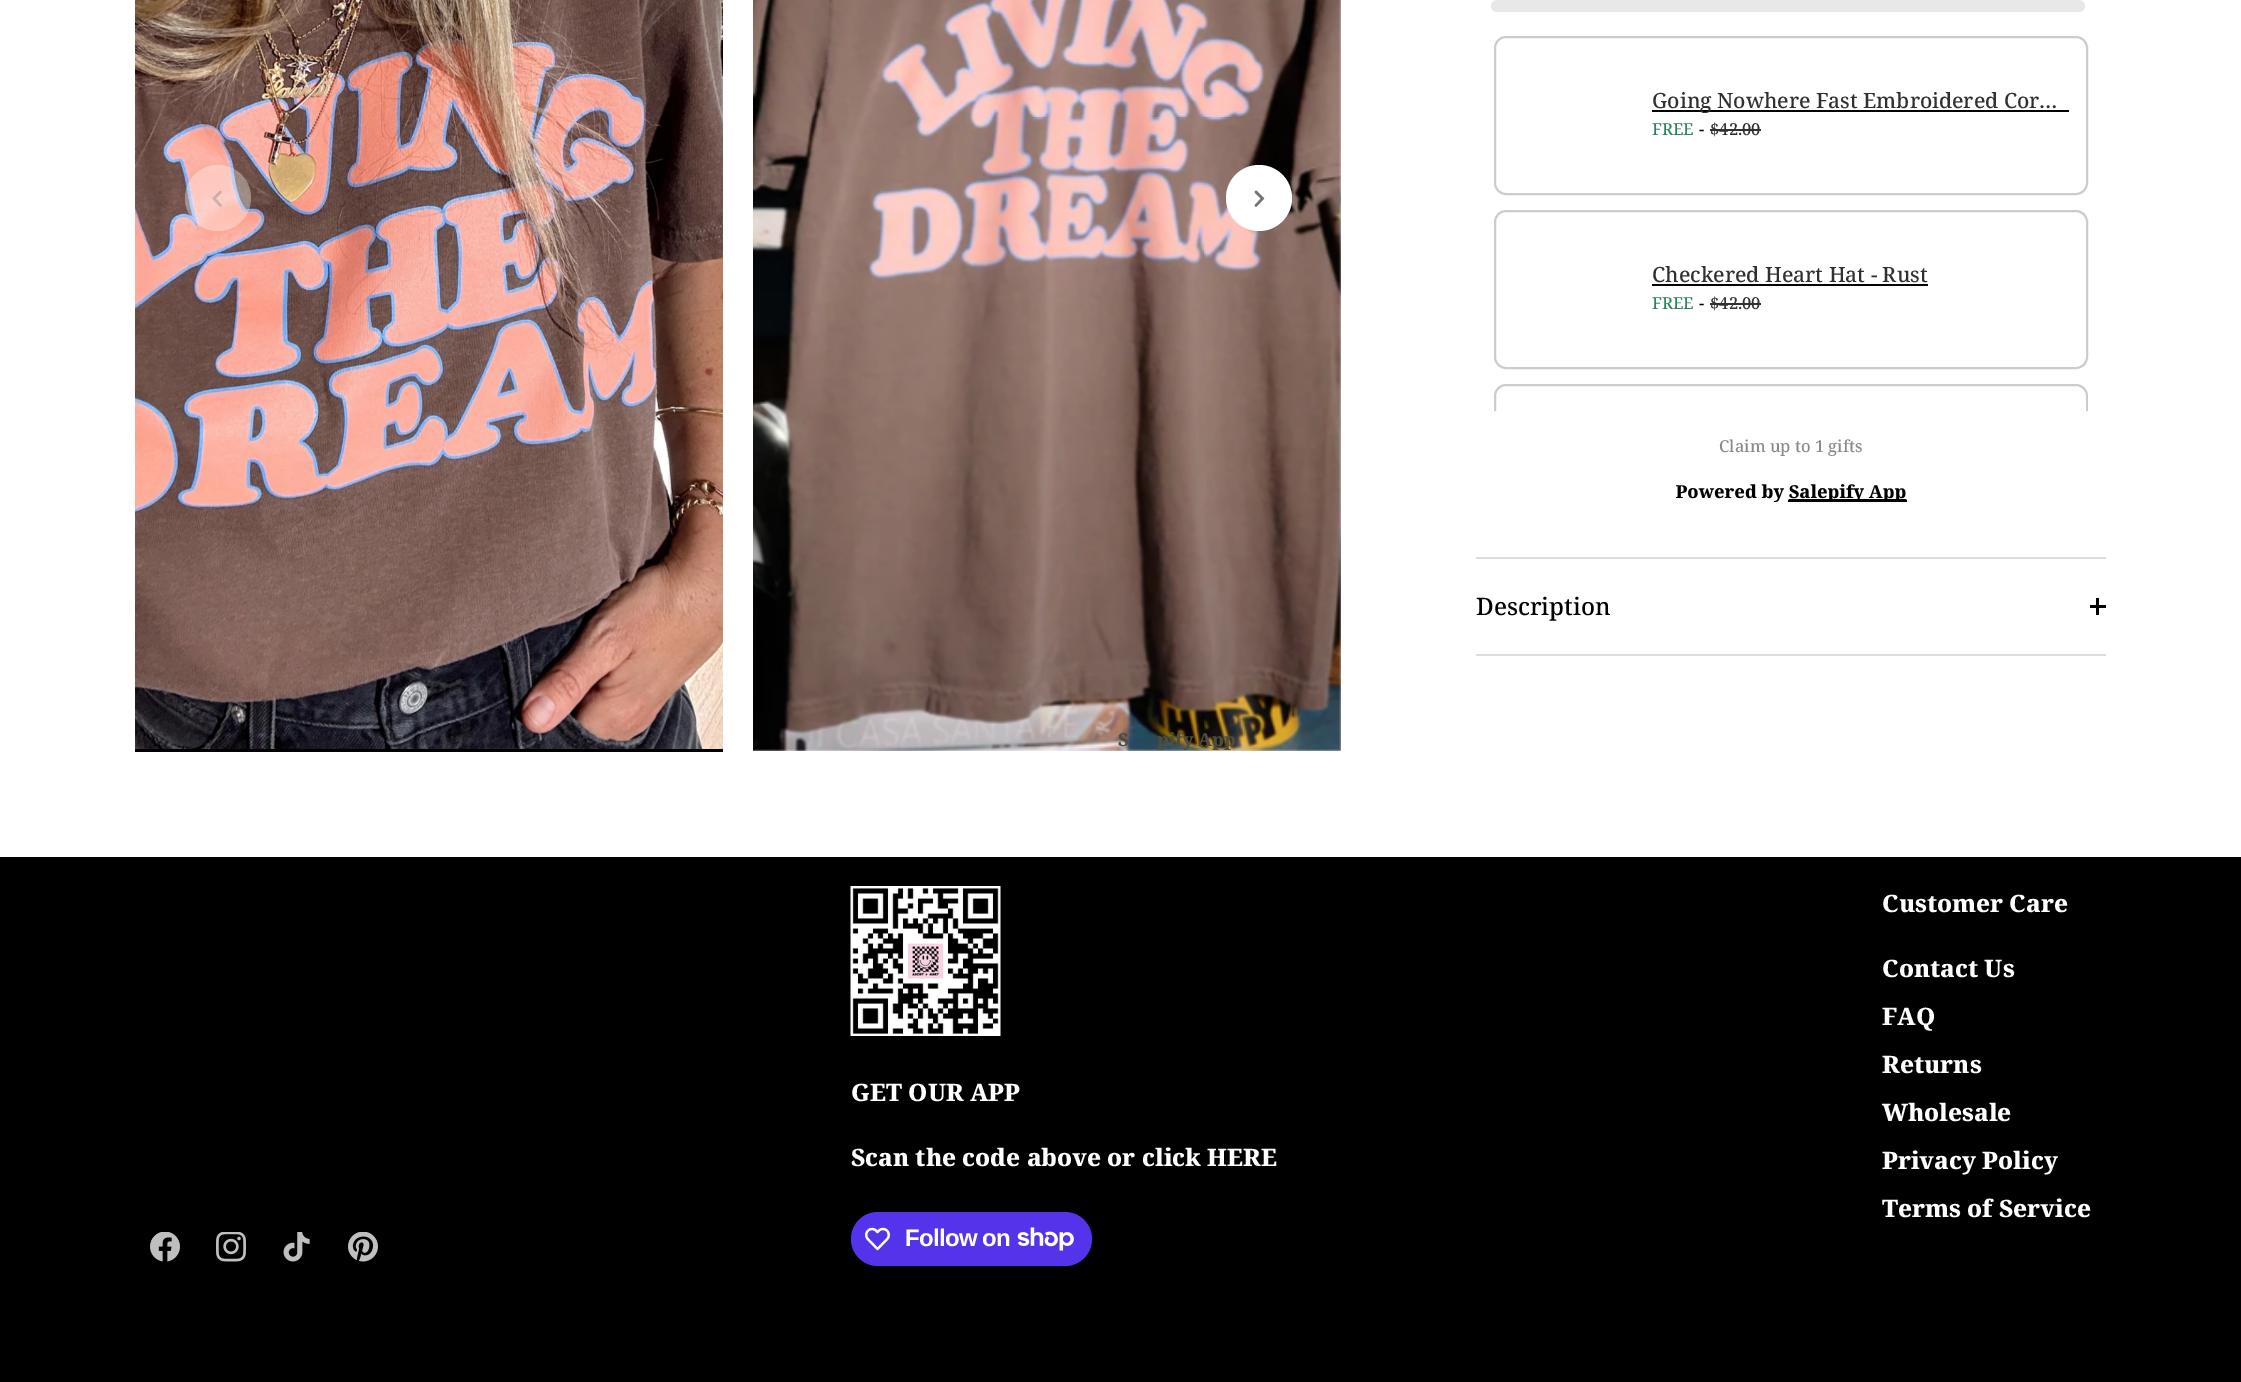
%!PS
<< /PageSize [2241 1382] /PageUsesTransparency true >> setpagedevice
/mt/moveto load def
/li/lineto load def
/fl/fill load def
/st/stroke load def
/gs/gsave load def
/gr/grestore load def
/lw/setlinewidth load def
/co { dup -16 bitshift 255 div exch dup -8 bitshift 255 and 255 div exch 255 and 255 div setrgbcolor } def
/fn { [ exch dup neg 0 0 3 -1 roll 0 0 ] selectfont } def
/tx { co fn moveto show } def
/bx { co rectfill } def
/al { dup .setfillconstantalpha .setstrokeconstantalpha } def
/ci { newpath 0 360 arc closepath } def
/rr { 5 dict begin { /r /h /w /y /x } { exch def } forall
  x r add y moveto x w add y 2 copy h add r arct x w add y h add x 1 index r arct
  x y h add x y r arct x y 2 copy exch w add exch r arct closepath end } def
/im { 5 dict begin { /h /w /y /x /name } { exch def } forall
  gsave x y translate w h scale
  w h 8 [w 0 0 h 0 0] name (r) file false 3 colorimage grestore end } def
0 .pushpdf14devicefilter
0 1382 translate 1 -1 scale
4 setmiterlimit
0 0 2241 1382 16#FFFFFF bx
(media/1.raw) 135 0 588 749 im
135 749 588 3 16#000000 bx
(media/2.raw) 753 0 588 751 im
(media/3.raw) 1675 484 232 18 im
0.35 al
16#FFFFFF co
218 198 33 ci fl
16#757575 co
2.5 lw
1 setlinecap
220.5 192 mt 214 198.5 li 220.5 205.5 li st
1 al
16#FFFFFF co
1259 198 33 ci fl
16#757575 co
1256 205.5 mt 1262.5 198.5 li 1256 192 li st
16#E8E8E8 co
1491 0 594 12 6 rr fl
16#CCCCCC co
2 lw
0 setlinecap
1495 37 592 157 11 rr st
1652 110 417 2 16#000000 bx
1710 129 51 2 16#303030 bx
16#CCCCCC co
1495 211 592 157 11 rr st
1652 284 276 2 16#000000 bx
1710 303 51 2 16#303030 bx
1788 500 119 2 16#000000 bx
gs
1494 36 594 375 rectclip
16#CCCCCC co
1495 385 592 157 11 rr st
gr
1476 557 630 2 16#DDDDDD bx
1476 654 630 2 16#DDDDDD bx
2096 598 3 17 16#000000 bx
2090 605 16 3 16#000000 bx
0 857 2241 525 16#000000 bx
(media/4.raw) 150 1232 30 30 im
(media/5.raw) 216 1232 30 30 im
(media/6.raw) 283 1232 27 30 im
(media/7.raw) 348 1232 30 30 im
(media/8.raw) 850 886 151 150 im
16#5433EB co
851 1212 241 54 27 rr fl
(media/9.raw) 865 1227 25 24 im
(media/10.raw) 1017 1227 57 24 im
(Going Nowhere Fast Embroidered Cor…) 1652 108 /NotoSerif-Medium 21 16#303030 tx
(FREE) 1652 135 /NotoSerif-Medium 16.5 16#29845A tx
(-) 1699 135 /NotoSerif-Medium 16.5 16#000000 tx
($42.00) 1710 135 /NotoSerif-Medium 16.5 16#303030 tx
(Checkered Heart Hat - Rust) 1652 282 /NotoSerif-Medium 21 16#303030 tx
(FREE) 1652 309 /NotoSerif-Medium 16.5 16#29845A tx
(-) 1699 309 /NotoSerif-Medium 16.5 16#000000 tx
($42.00) 1710 309 /NotoSerif-Medium 16.5 16#303030 tx
(Claim up to 1 gifts) 1719 452 /NotoSerif-Medium 16.5 16#8A8A8A tx
(Description) 1476 615 /NotoSerif-Medium 24 16#000000 tx
(S) 1118 746 /NotoSerif-ExtraBold 18 16#4D4D3F tx
(pify App) 1157 746 /NotoSerif-ExtraBold 18 16#4D4D3F tx
(GET OUR APP) 851 1101 /NotoSerif-ExtraBold 24 16#FFFFFF tx
(Scan the code above or click HERE) 851 1166 /NotoSerif-ExtraBold 24 16#FFFFFF tx
/LiberationSans-Bold 24 fn
905 1246 mt -.75 0 (Follow on) ashow
(Customer Care) 1882 912 /NotoSerif-ExtraBold 24 16#FFFFFF tx
(Contact Us) 1882 977 /NotoSerif-ExtraBold 24 16#FFFFFF tx
(FAQ) 1882 1025 /NotoSerif-ExtraBold 24 16#FFFFFF tx
(Returns) 1882 1073 /NotoSerif-ExtraBold 24 16#FFFFFF tx
(Wholesale) 1882 1121 /NotoSerif-ExtraBold 24 16#FFFFFF tx
(Privacy Policy) 1882 1169 /NotoSerif-ExtraBold 24 16#FFFFFF tx
(Terms of Service) 1882 1217 /NotoSerif-ExtraBold 24 16#FFFFFF tx
.poppdf14devicefilter showpage
